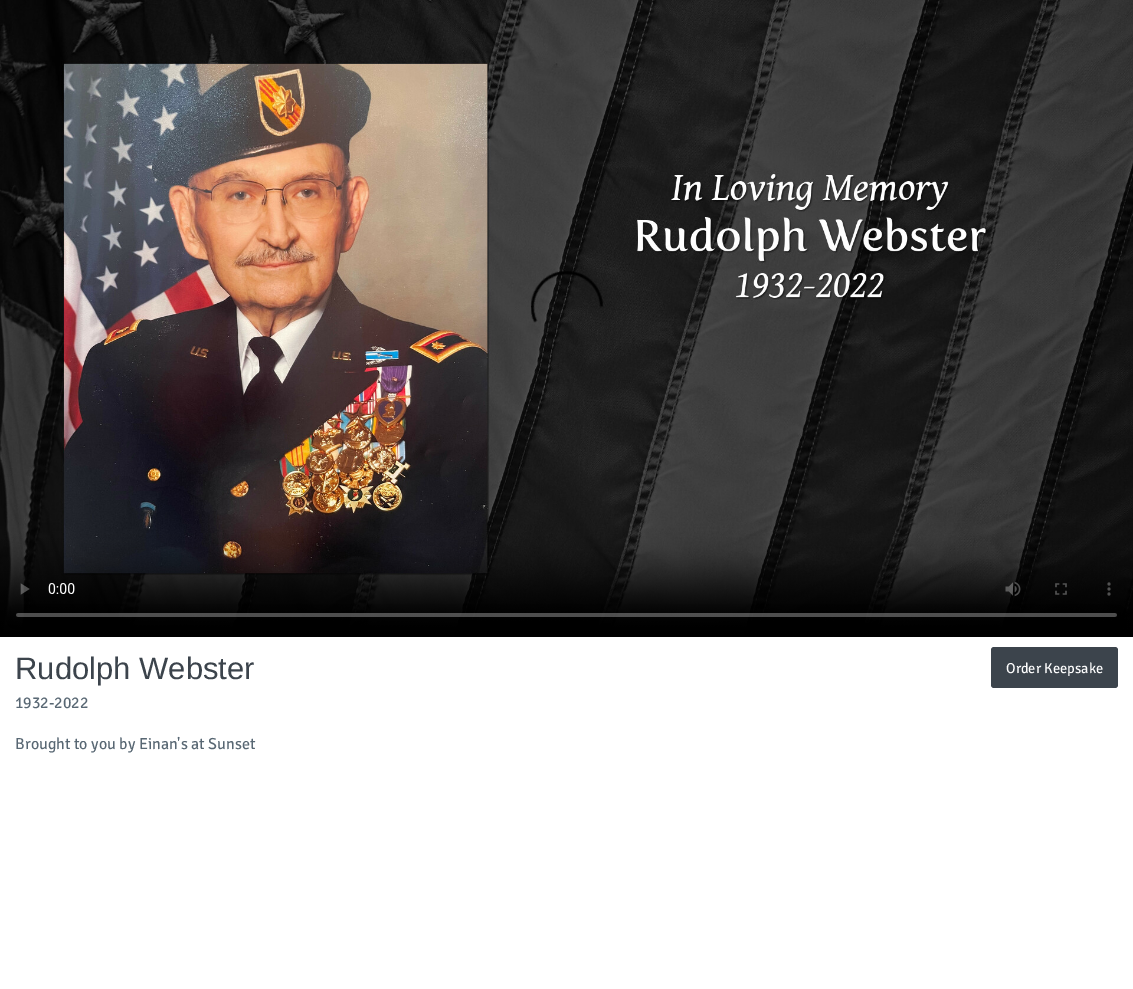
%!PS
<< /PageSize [1133 989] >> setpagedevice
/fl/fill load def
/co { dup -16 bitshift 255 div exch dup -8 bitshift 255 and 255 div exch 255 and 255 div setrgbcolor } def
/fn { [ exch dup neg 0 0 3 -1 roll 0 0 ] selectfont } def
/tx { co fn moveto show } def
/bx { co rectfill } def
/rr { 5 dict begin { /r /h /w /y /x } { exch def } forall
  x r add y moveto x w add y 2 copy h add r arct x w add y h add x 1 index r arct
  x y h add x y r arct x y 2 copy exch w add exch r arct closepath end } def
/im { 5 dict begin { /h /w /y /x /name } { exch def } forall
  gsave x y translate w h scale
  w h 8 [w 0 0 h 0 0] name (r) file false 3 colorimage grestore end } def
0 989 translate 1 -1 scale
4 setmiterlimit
0 0 1133 989 16#FFFFFF bx
(media/1.raw) 0 0 1133 637 im
16#3C444C co
991 647 127 41 3 rr fl
(Rudolph Webster) 15 679 /LiberationSans-Regular 31 16#3C444C tx
(1932-2022) 15 708 /SignikaNegative-Regular 16 16#586773 tx
(Brought to you by Einan's at Sunset) 15 749 /SignikaNegative-Regular 16 16#586773 tx
(Order Keepsake) 1006 673 /SignikaNegative-Regular 14.5 16#FEFEFE tx
showpage
